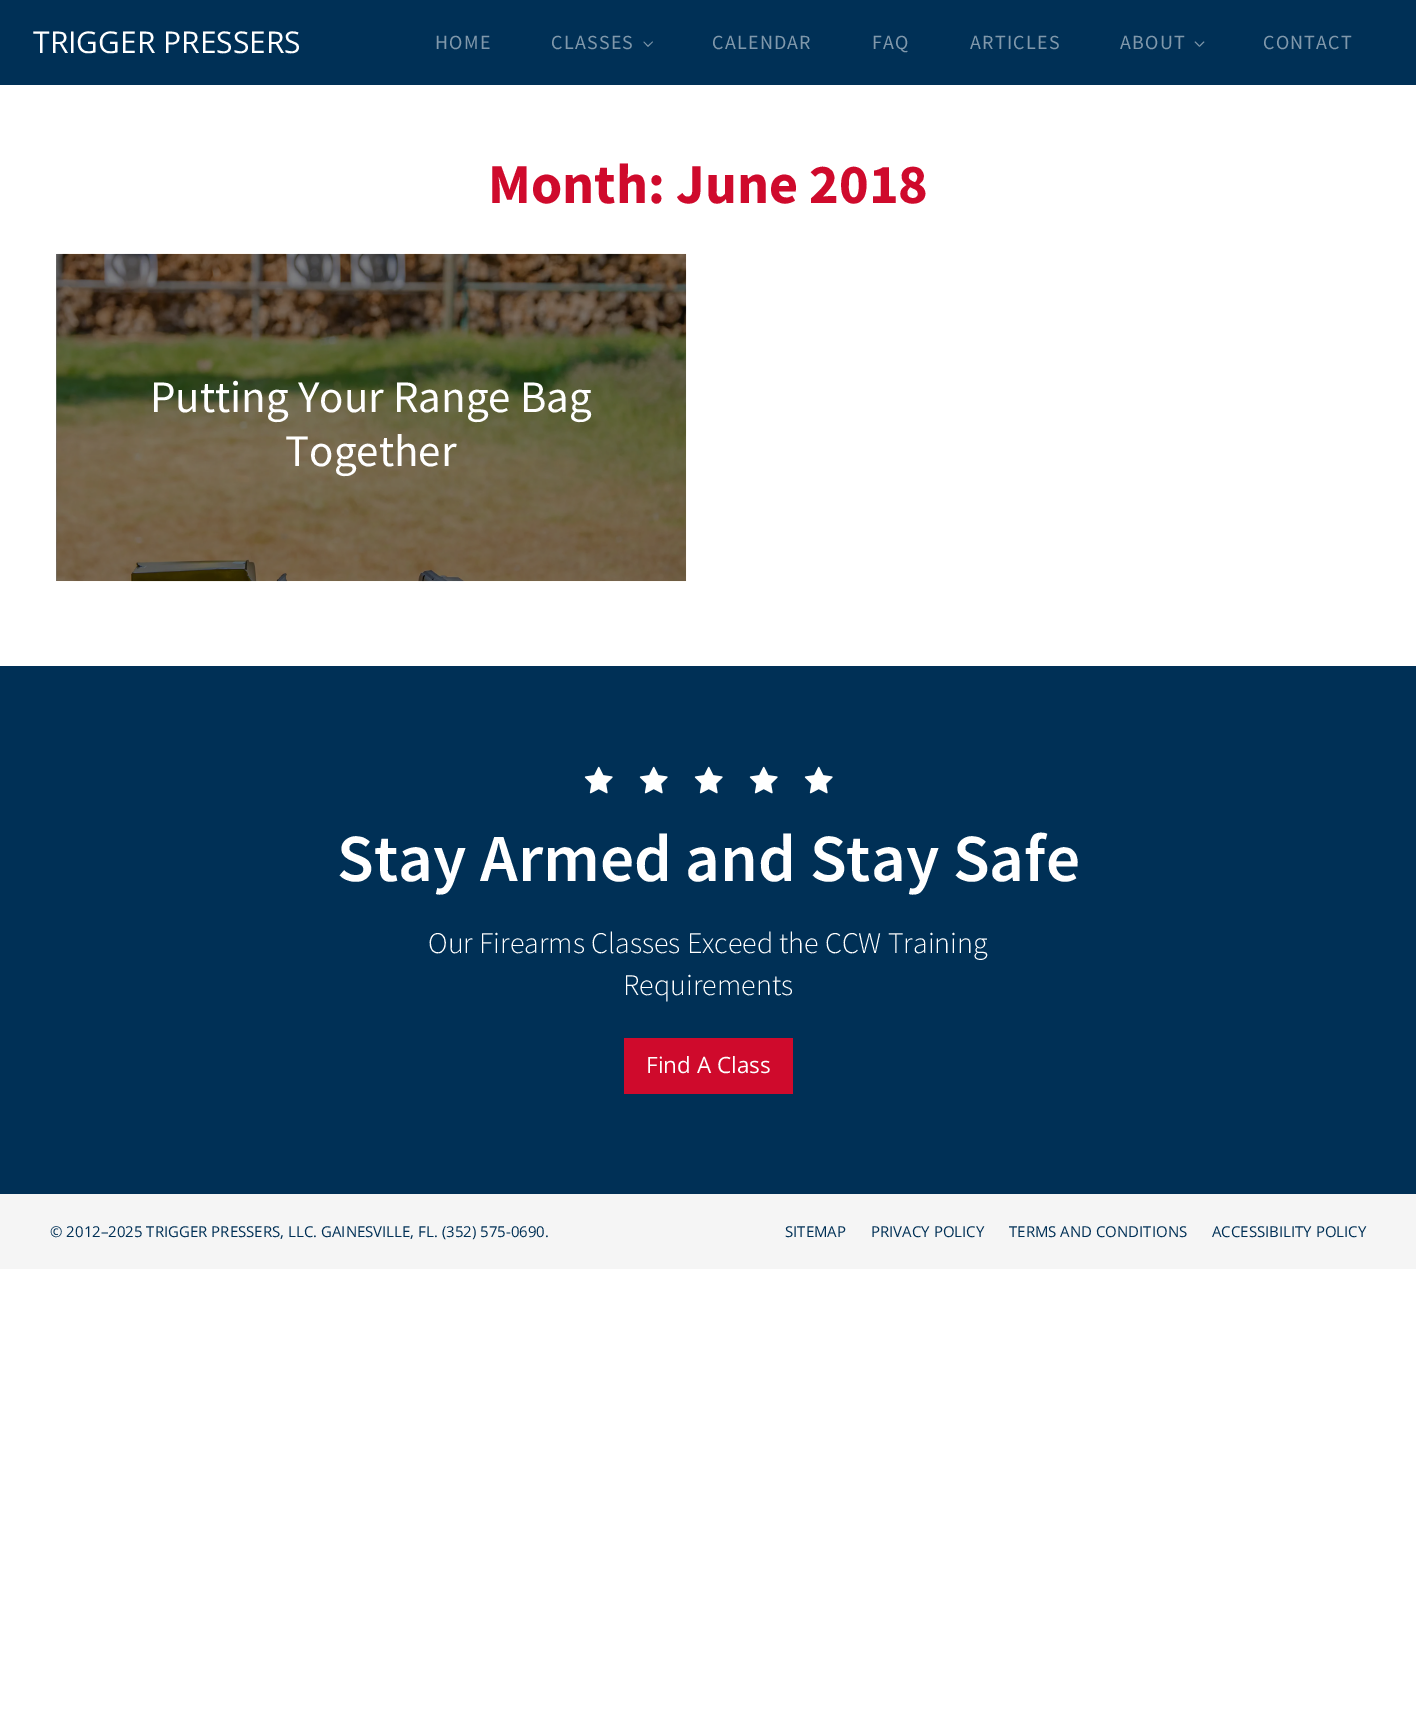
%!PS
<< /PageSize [1416 1721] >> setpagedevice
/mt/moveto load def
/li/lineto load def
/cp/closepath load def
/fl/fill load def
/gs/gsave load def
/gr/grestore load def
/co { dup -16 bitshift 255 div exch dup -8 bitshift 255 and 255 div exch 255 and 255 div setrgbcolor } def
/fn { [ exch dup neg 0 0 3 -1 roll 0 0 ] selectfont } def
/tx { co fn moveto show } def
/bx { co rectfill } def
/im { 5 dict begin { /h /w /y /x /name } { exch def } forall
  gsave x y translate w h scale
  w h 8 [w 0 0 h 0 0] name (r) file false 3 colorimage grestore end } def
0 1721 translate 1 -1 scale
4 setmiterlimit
0 0 1416 1721 16#FFFFFF bx
0 0 1416 85 16#003056 bx
16#8098AB co
653 42 mt 648 47 li 648 45.5 li 652.5 41.5 li cp 648 47 mt 643.5 42 li 644 41.5 li 648 45.5 li cp fl
1204.5 42 mt 1199.5 47 li 1199.5 45.5 li 1203.5 41.5 li cp fl
1199.5 47 mt 1194.5 42 li 1195.5 41.5 li 1199.5 45.5 li cp fl
gs 56 254 mt 57 254 li 57 581 li 56 581 li cp clip newpath
<< /ShadingType 2 /ColorSpace /DeviceRGB /Coords [132 657 627 162] /Extend [true true] /Function << /FunctionType 3 /Domain [0 1] /Functions [<< /FunctionType 2 /Domain [0 1] /C0 [.467 .467 .467] /C1 [.467 .467 .467] /N 1 >> << /FunctionType 2 /Domain [0 1] /C0 [.435 .435 .435] /C1 [.435 .435 .435] /N 1 >> << /FunctionType 2 /Domain [0 1] /C0 [.467 .467 .467] /C1 [.467 .467 .467] /N 1 >> << /FunctionType 2 /Domain [0 1] /C0 [.435 .435 .435] /C1 [.435 .435 .435] /N 1 >> << /FunctionType 2 /Domain [0 1] /C0 [.467 .467 .467] /C1 [.467 .467 .467] /N 1 >> << /FunctionType 2 /Domain [0 1] /C0 [.435 .435 .435] /C1 [.435 .435 .435] /N 1 >> << /FunctionType 2 /Domain [0 1] /C0 [.467 .467 .467] /C1 [.467 .467 .467] /N 1 >> << /FunctionType 2 /Domain [0 1] /C0 [.435 .435 .435] /C1 [.435 .435 .435] /N 1 >> << /FunctionType 2 /Domain [0 1] /C0 [.467 .467 .467] /C1 [.467 .467 .467] /N 1 >> << /FunctionType 2 /Domain [0 1] /C0 [.435 .435 .435] /C1 [.435 .435 .435] /N 1 >> << /FunctionType 2 /Domain [0 1] /C0 [.467 .467 .467] /C1 [.467 .467 .467] /N 1 >> << /FunctionType 2 /Domain [0 1] /C0 [.435 .435 .435] /C1 [.435 .435 .435] /N 1 >> << /FunctionType 2 /Domain [0 1] /C0 [.467 .467 .467] /C1 [.467 .467 .467] /N 1 >> << /FunctionType 2 /Domain [0 1] /C0 [.435 .435 .435] /C1 [.435 .435 .435] /N 1 >> << /FunctionType 2 /Domain [0 1] /C0 [.467 .467 .467] /C1 [.467 .467 .467] /N 1 >> << /FunctionType 2 /Domain [0 1] /C0 [.435 .435 .435] /C1 [.435 .435 .435] /N 1 >> << /FunctionType 2 /Domain [0 1] /C0 [.467 .467 .467] /C1 [.467 .467 .467] /N 1 >> << /FunctionType 2 /Domain [0 1] /C0 [.435 .435 .435] /C1 [.435 .435 .435] /N 1 >> << /FunctionType 2 /Domain [0 1] /C0 [.467 .467 .467] /C1 [.467 .467 .467] /N 1 >> << /FunctionType 2 /Domain [0 1] /C0 [.435 .435 .435] /C1 [.435 .435 .435] /N 1 >> << /FunctionType 2 /Domain [0 1] /C0 [.467 .467 .467] /C1 [.467 .467 .467] /N 1 >> << /FunctionType 2 /Domain [0 1] /C0 [.435 .435 .435] /C1 [.435 .435 .435] /N 1 >> << /FunctionType 2 /Domain [0 1] /C0 [.467 .467 .467] /C1 [.467 .467 .467] /N 1 >> << /FunctionType 2 /Domain [0 1] /C0 [.435 .435 .435] /C1 [.435 .435 .435] /N 1 >> << /FunctionType 2 /Domain [0 1] /C0 [.467 .467 .467] /C1 [.467 .467 .467] /N 1 >> << /FunctionType 2 /Domain [0 1] /C0 [.435 .435 .435] /C1 [.435 .435 .435] /N 1 >> << /FunctionType 2 /Domain [0 1] /C0 [.467 .467 .467] /C1 [.467 .467 .467] /N 1 >> << /FunctionType 2 /Domain [0 1] /C0 [.435 .435 .435] /C1 [.435 .435 .435] /N 1 >> << /FunctionType 2 /Domain [0 1] /C0 [.467 .467 .467] /C1 [.467 .467 .467] /N 1 >> << /FunctionType 2 /Domain [0 1] /C0 [.435 .435 .435] /C1 [.435 .435 .435] /N 1 >> << /FunctionType 2 /Domain [0 1] /C0 [.467 .467 .467] /C1 [.467 .467 .467] /N 1 >> << /FunctionType 2 /Domain [0 1] /C0 [.435 .435 .435] /C1 [.435 .435 .435] /N 1 >> << /FunctionType 2 /Domain [0 1] /C0 [.467 .467 .467] /C1 [.467 .467 .467] /N 1 >> << /FunctionType 2 /Domain [0 1] /C0 [.435 .435 .435] /C1 [.435 .435 .435] /N 1 >> << /FunctionType 2 /Domain [0 1] /C0 [.467 .467 .467] /C1 [.467 .467 .467] /N 1 >> << /FunctionType 2 /Domain [0 1] /C0 [.435 .435 .435] /C1 [.435 .435 .435] /N 1 >> << /FunctionType 2 /Domain [0 1] /C0 [.467 .467 .467] /C1 [.467 .467 .467] /N 1 >> << /FunctionType 2 /Domain [0 1] /C0 [.435 .435 .435] /C1 [.435 .435 .435] /N 1 >> << /FunctionType 2 /Domain [0 1] /C0 [.467 .467 .467] /C1 [.467 .467 .467] /N 1 >> << /FunctionType 2 /Domain [0 1] /C0 [.435 .435 .435] /C1 [.435 .435 .435] /N 1 >> << /FunctionType 2 /Domain [0 1] /C0 [.467 .467 .467] /C1 [.467 .467 .467] /N 1 >> << /FunctionType 2 /Domain [0 1] /C0 [.435 .435 .435] /C1 [.435 .435 .435] /N 1 >> << /FunctionType 2 /Domain [0 1] /C0 [.467 .467 .467] /C1 [.467 .467 .467] /N 1 >> << /FunctionType 2 /Domain [0 1] /C0 [.435 .435 .435] /C1 [.435 .435 .435] /N 1 >> << /FunctionType 2 /Domain [0 1] /C0 [.467 .467 .467] /C1 [.467 .467 .467] /N 1 >> << /FunctionType 2 /Domain [0 1] /C0 [.435 .435 .435] /C1 [.435 .435 .435] /N 1 >> << /FunctionType 2 /Domain [0 1] /C0 [.467 .467 .467] /C1 [.467 .467 .467] /N 1 >> << /FunctionType 2 /Domain [0 1] /C0 [.435 .435 .435] /C1 [.435 .435 .435] /N 1 >> << /FunctionType 2 /Domain [0 1] /C0 [.467 .467 .467] /C1 [.467 .467 .467] /N 1 >> << /FunctionType 2 /Domain [0 1] /C0 [.435 .435 .435] /C1 [.435 .435 .435] /N 1 >> << /FunctionType 2 /Domain [0 1] /C0 [.467 .467 .467] /C1 [.467 .467 .467] /N 1 >> << /FunctionType 2 /Domain [0 1] /C0 [.435 .435 .435] /C1 [.435 .435 .435] /N 1 >> << /FunctionType 2 /Domain [0 1] /C0 [.467 .467 .467] /C1 [.467 .467 .467] /N 1 >> << /FunctionType 2 /Domain [0 1] /C0 [.435 .435 .435] /C1 [.435 .435 .435] /N 1 >> << /FunctionType 2 /Domain [0 1] /C0 [.467 .467 .467] /C1 [.467 .467 .467] /N 1 >> << /FunctionType 2 /Domain [0 1] /C0 [.435 .435 .435] /C1 [.435 .435 .435] /N 1 >>] /Bounds [.02 .04 .05 .07 .09 .11 .12 .14 .16 .18 .2 .21 .23 .25 .27 .29 .3 .32 .34 .36 .38 .39 .41 .43 .45 .46 .48 .5 .52 .54 .55 .57 .59 .61 .62 .64 .66 .68 .7 .71 .73 .75 .77 .79 .8 .82 .84 .86 .87 .89 .91 .93 .95 .96 .98] /Encode [0 1 0 1 0 1 0 1 0 1 0 1 0 1 0 1 0 1 0 1 0 1 0 1 0 1 0 1 0 1 0 1 0 1 0 1 0 1 0 1 0 1 0 1 0 1 0 1 0 1 0 1 0 1 0 1 0 1 0 1 0 1 0 1 0 1 0 1 0 1 0 1 0 1 0 1 0 1 0 1 0 1 0 1 0 1 0 1 0 1 0 1 0 1 0 1 0 1 0 1 0 1 0 1 0 1 0 1 0 1 0 1] >> >> shfill gr
(media/1.raw) 56 253 631 329 im
0 666 1416 528 16#003056 bx
(media/2.raw) 584 766 29 28 im
(media/2.raw) 639 766 29 28 im
(media/2.raw) 694 766 29 28 im
(media/2.raw) 749 766 29 28 im
(media/2.raw) 804 766 29 28 im
624 1038 169 56 16#CF0A2C bx
0 1194 1416 75 16#F5F5F5 bx
(TRIGGER PRESSERS) 33 53 /OpenSans-Regular 30 16#FFFFFF tx
/SourceSansPro-Regular 20 fn
16#8098AB co
435 49 mt 1.25 0 (HOME) ashow
551 49 mt 1.25 0 (CLASSES) ashow
712 49 mt 1.25 0 (CALENDAR) ashow
872 49 mt 1.25 0 (FAQ) ashow
970 49 mt 1.25 0 (ARTICLES) ashow
1120 49 mt 1.25 0 (ABOUT) ashow
1263 49 mt 1.25 0 (CONTACT) ashow
(Month: June 2018) 488 203 /SourceSansPro-Bold 56.25 16#CF0A2C tx
(Putting Your Range Bag) 150 412 /SourceSansPro-Regular 45 16#FFFFFF tx
(Together) 285 466 /SourceSansPro-Regular 45 16#FFFFFF tx
(Stay Armed and Stay Safe) 337 881 /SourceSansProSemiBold-SemiBold 67.5 16#FFFFFF tx
(Our Firearms Classes Exceed the CCW Training) 428 953 /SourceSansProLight-Light 30 16#FFFFFF tx
(Requirements) 623 995 /SourceSansProLight-Light 30 16#FFFFFF tx
(Find A Class) 646 1073 /OpenSans-Regular 22.5 16#FFFFFF tx
(© 2012–2025 TRIGGER PRESSERS, LLC. GAINESVILLE, FL. \(352\) 575-0690.) 50 1237 /OpenSans-Regular 15 16#003056 tx
(SITEMAP) 785 1237 /OpenSans-Regular 15 16#003056 tx
(PRIVACY POLICY) 871 1237 /OpenSans-Regular 15 16#003056 tx
(TERMS AND CONDITIONS) 1009 1237 /OpenSans-Regular 15 16#003056 tx
(ACCESSIBILITY POLICY) 1212 1237 /OpenSans-Regular 15 16#003056 tx
showpage
